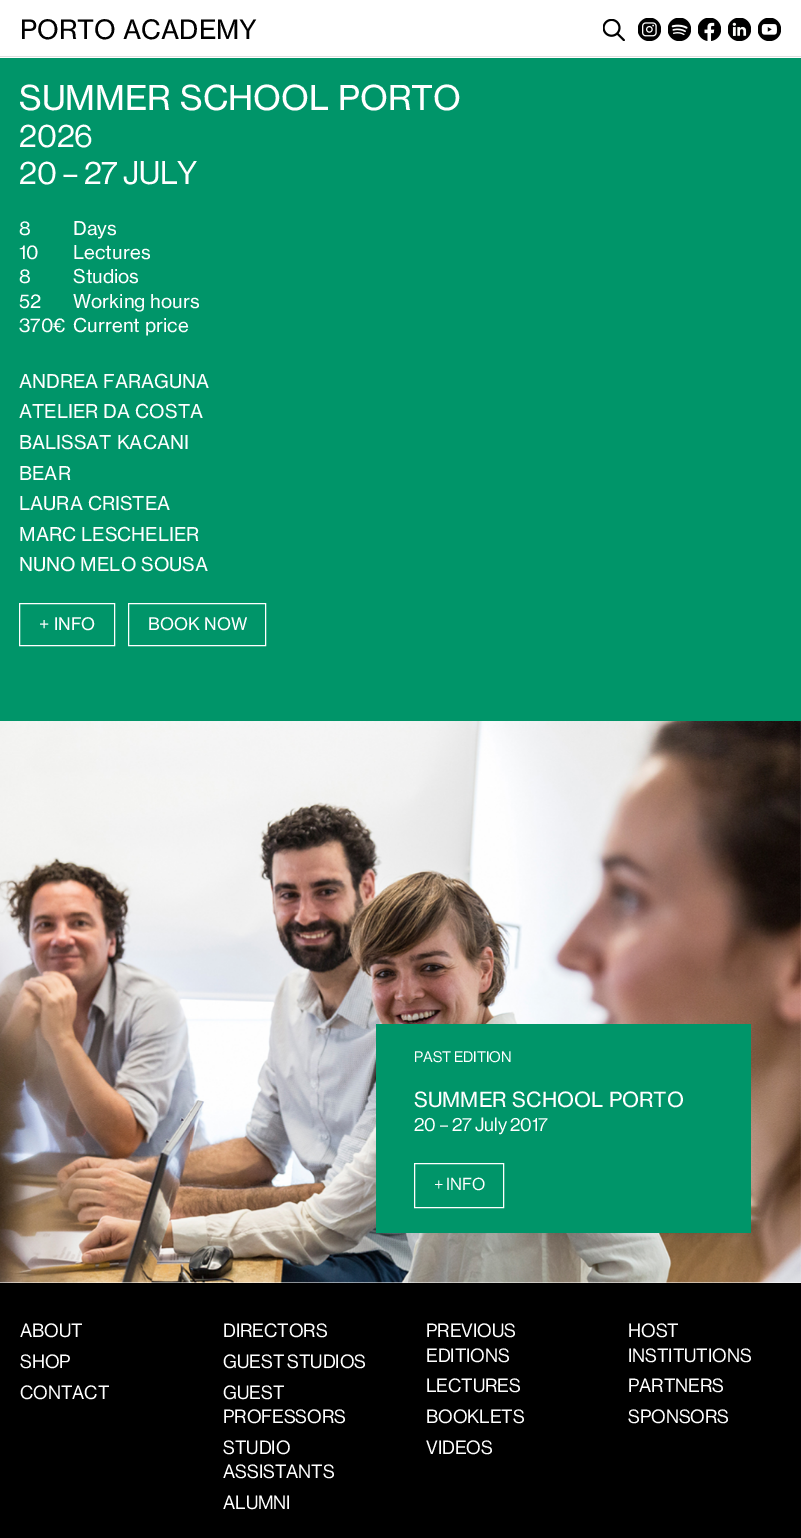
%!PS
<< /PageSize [801 1538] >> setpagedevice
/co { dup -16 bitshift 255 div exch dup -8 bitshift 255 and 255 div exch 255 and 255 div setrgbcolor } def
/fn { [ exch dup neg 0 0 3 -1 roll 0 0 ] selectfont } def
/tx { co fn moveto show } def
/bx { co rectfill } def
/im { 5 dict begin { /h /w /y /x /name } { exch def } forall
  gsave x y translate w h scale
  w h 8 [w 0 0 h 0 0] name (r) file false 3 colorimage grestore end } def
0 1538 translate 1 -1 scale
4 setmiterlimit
0 0 801 1538 16#FFFFFF bx
0 56 801 1 16#DFDFDF bx
(media/1.raw) 603 19 22 22 im
(media/2.raw) 638 18 23 23 im
(media/3.raw) 668 18 23 23 im
(media/4.raw) 698 18 23 23 im
(media/5.raw) 728 18 23 23 im
(media/6.raw) 758 18 23 23 im
0 58 801 663 16#009569 bx
16#FFFFFF co
19.5 603.5 95 42 rectstroke
128.5 603.5 137 42 rectstroke
(media/7.raw) 0 721 801 562 im
376 1024 375 209 16#009569 bx
16#FFFFFF co
414.5 1163.5 89 44 rectstroke
0 1283 801 255 16#000000 bx
(PORTO ACADEMY) 20 39 /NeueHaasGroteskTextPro-Regular 26.25 16#000000 tx
(SUMMER SCHOOL PORTO) 19 110 /NeueHaasGroteskTextPro-Regular 33.75 16#FFFFFF tx
(2026) 19 147 /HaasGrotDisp-Regular 32 16#FFFFFF tx
(20 – 27 JULY) 19 184 /HaasGrotDisp-Regular 32 16#FFFFFF tx
(8) 19 235 /NeueHaasGroteskTextPro-Regular 18.75 16#FFFFFF tx
(Days) 73 235 /NeueHaasGroteskTextPro-Regular 18.75 16#FFFFFF tx
(10) 19 259 /NeueHaasGroteskTextPro-Regular 18.75 16#FFFFFF tx
(Lectures) 73 259 /NeueHaasGroteskTextPro-Regular 18.75 16#FFFFFF tx
(8) 19 283 /NeueHaasGroteskTextPro-Regular 18.75 16#FFFFFF tx
(Studios) 73 283 /NeueHaasGroteskTextPro-Regular 18.75 16#FFFFFF tx
(52) 19 308 /NeueHaasGroteskTextPro-Regular 18.75 16#FFFFFF tx
(Working hours) 73 308 /NeueHaasGroteskTextPro-Regular 18.75 16#FFFFFF tx
(370€) 19 332 /NeueHaasGroteskTextPro-Regular 18.75 16#FFFFFF tx
(Current price) 73 332 /NeueHaasGroteskTextPro-Regular 18.75 16#FFFFFF tx
(ANDREA FARAGUNA) 19 388 /NeueHaasGroteskTextPro-Regular 18.75 16#FFFFFF tx
(ATELIER DA COSTA) 19 418 /NeueHaasGroteskTextPro-Regular 18.75 16#FFFFFF tx
(BALISSAT KACANI) 19 449 /NeueHaasGroteskTextPro-Regular 18.75 16#FFFFFF tx
(BEAR) 19 480 /NeueHaasGroteskTextPro-Regular 18.75 16#FFFFFF tx
(LAURA CRISTEA) 19 510 /NeueHaasGroteskTextPro-Regular 18.75 16#FFFFFF tx
(MARC LESCHELIER) 19 541 /NeueHaasGroteskTextPro-Regular 18.75 16#FFFFFF tx
(NUNO MELO SOUSA) 19 571 /NeueHaasGroteskTextPro-Regular 18.75 16#FFFFFF tx
(+ INFO) 39 630 /NeueHaasGroteskTextPro-Regular 17 16#FFFFFF tx
(BOOK NOW) 148 630 /NeueHaasGroteskTextPro-Regular 17 16#FFFFFF tx
(PAST EDITION) 414 1062 /HaasGrotDisp-Regular 15 16#FFFFFF tx
(SUMMER SCHOOL PORTO) 414 1107 /NeueHaasGroteskTextPro-Regular 20.6 16#FFFFFF tx
(20 – 27 July 2017) 414 1131 /HaasGrotDisp-Regular 18.75 16#FFFFFF tx
(+ INFO) 434 1190 /HaasGrotDisp-Regular 17 16#FFFFFF tx
(ABOUT) 20 1337 /HaasGrotDisp-Regular 18.75 16#FFFFFF tx
(SHOP) 20 1368 /HaasGrotDisp-Regular 18.75 16#FFFFFF tx
(CONTACT) 20 1399 /HaasGrotDisp-Regular 18.75 16#FFFFFF tx
(DIRECTORS) 223 1337 /HaasGrotDisp-Regular 18.75 16#FFFFFF tx
(GUEST STUDIOS) 223 1368 /HaasGrotDisp-Regular 18.75 16#FFFFFF tx
(GUEST) 223 1399 /HaasGrotDisp-Regular 18.75 16#FFFFFF tx
(PROFESSORS) 223 1423 /HaasGrotDisp-Regular 18.75 16#FFFFFF tx
(STUDIO) 223 1454 /HaasGrotDisp-Regular 18.75 16#FFFFFF tx
(ASSISTANTS) 223 1478 /HaasGrotDisp-Regular 18.75 16#FFFFFF tx
(ALUMNI) 223 1509 /HaasGrotDisp-Regular 18.75 16#FFFFFF tx
(PREVIOUS) 426 1337 /HaasGrotDisp-Regular 18.75 16#FFFFFF tx
(EDITIONS) 426 1362 /HaasGrotDisp-Regular 18.75 16#FFFFFF tx
(LECTURES) 426 1392 /HaasGrotDisp-Regular 18.75 16#FFFFFF tx
(BOOKLETS) 426 1423 /HaasGrotDisp-Regular 18.75 16#FFFFFF tx
(VIDEOS) 426 1454 /HaasGrotDisp-Regular 18.75 16#FFFFFF tx
(HOST) 628 1337 /HaasGrotDisp-Regular 18.75 16#FFFFFF tx
(INSTITUTIONS) 628 1362 /HaasGrotDisp-Regular 18.75 16#FFFFFF tx
(PARTNERS) 628 1392 /HaasGrotDisp-Regular 18.75 16#FFFFFF tx
(SPONSORS) 628 1423 /HaasGrotDisp-Regular 18.75 16#FFFFFF tx
showpage
